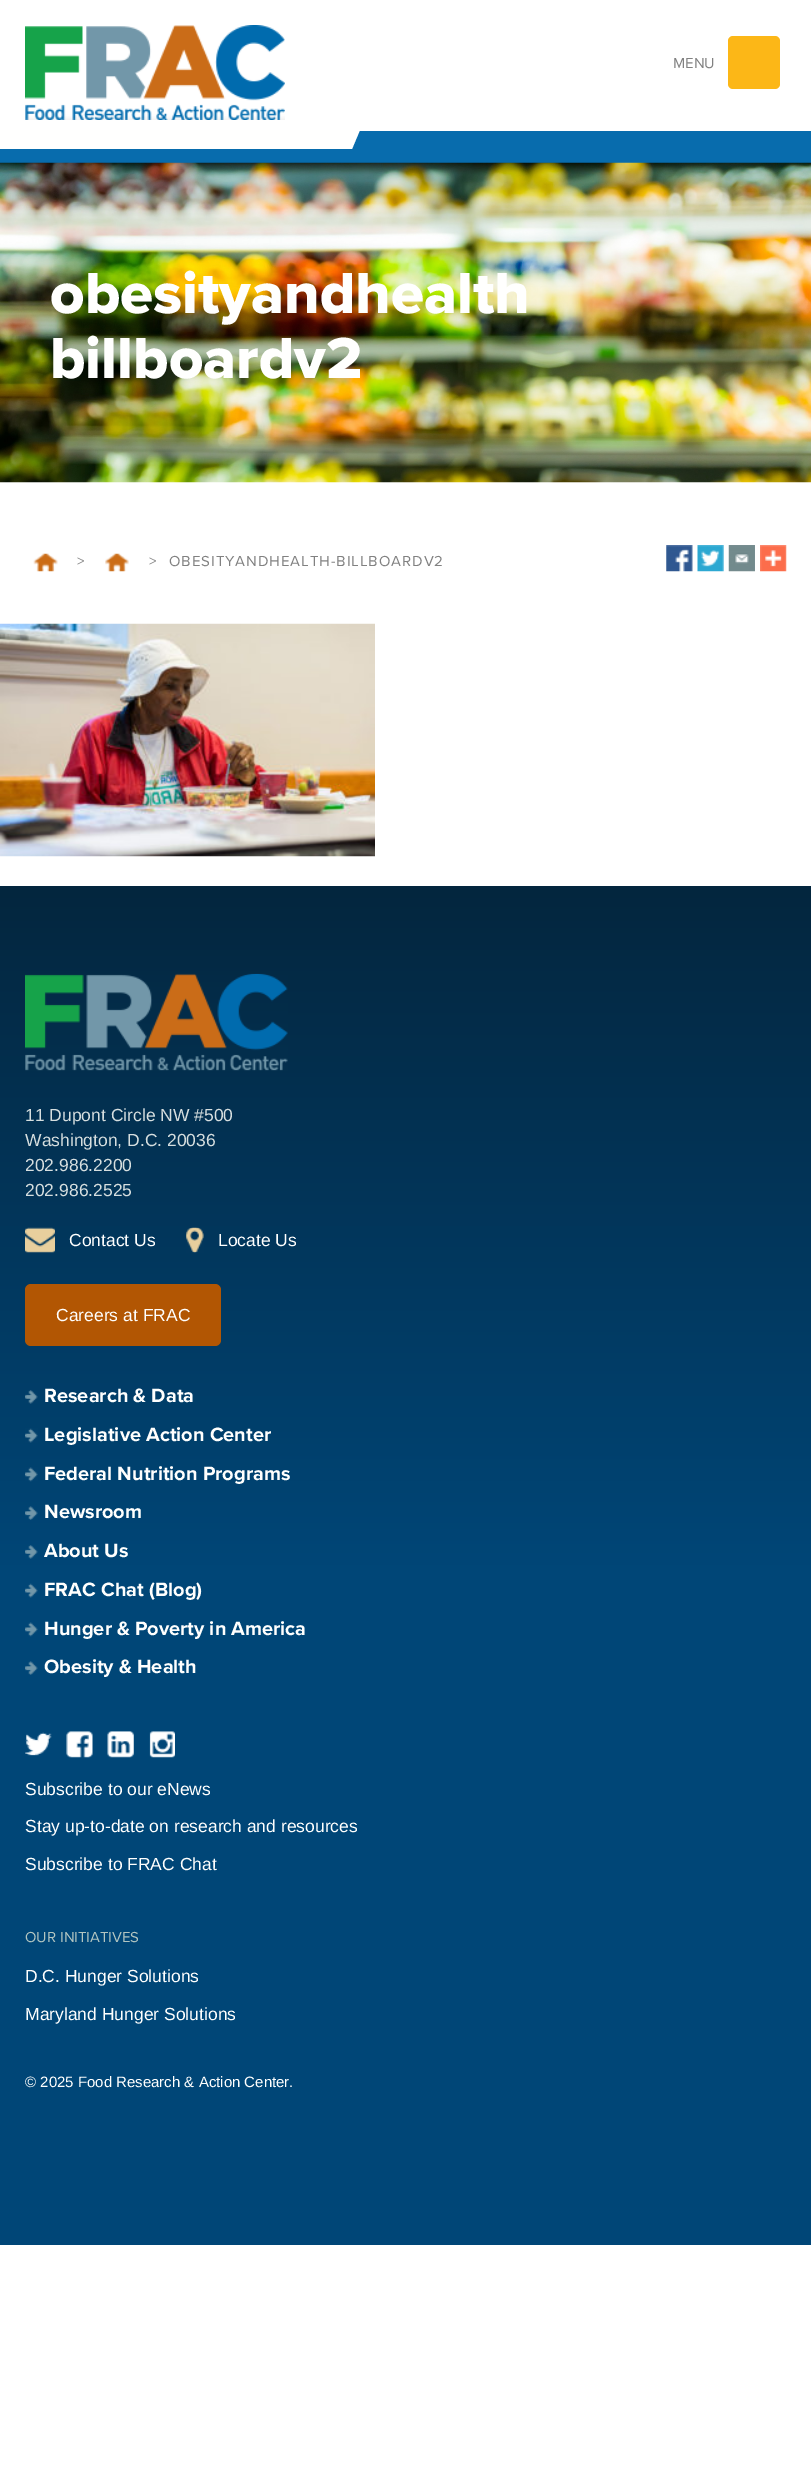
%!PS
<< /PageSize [811 2467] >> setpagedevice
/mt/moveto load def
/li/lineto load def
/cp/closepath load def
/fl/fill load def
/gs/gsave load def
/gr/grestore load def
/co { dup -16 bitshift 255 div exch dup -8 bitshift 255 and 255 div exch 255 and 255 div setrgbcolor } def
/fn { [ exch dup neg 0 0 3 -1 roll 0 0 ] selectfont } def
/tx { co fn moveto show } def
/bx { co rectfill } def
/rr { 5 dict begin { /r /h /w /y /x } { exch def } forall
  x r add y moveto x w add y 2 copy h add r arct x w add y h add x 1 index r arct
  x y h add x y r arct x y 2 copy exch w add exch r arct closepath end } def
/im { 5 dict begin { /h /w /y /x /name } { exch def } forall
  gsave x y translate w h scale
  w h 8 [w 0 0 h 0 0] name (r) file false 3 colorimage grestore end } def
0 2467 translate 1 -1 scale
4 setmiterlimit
0 0 811 2467 16#FFFFFF bx
(media/1.raw) 25 25 260 95 im
16#FCB717 co
728 36 52 53 5 rr fl
0 131 811 32 16#086CAD bx
16#FFFFFE co
-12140 130 mt 360 130 li 352 149 li -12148 149 li cp fl
(media/2.raw) 0 162 811 321 im
(media/3.raw) 33 553 25 19 im
(media/4.raw) 105 553 24 19 im
(media/5.raw) 666 545 27 27 im
(media/6.raw) 697 545 27 27 im
(media/7.raw) 728 545 27 27 im
(media/8.raw) 760 545 27 27 im
(media/9.raw) 0 623 375 234 im
gs 0 886 mt 811 886 li 811 2245 li 0 2245 li cp clip newpath
<< /ShadingType 2 /ColorSpace /DeviceRGB /Coords [406 886 406 2245] /Extend [true true] /Function << /FunctionType 3 /Domain [0 1] /Functions [<< /FunctionType 2 /Domain [0 1] /C0 [.016 .149 .243] /C1 [0 .275 .467] /N 1 >> << /FunctionType 2 /Domain [0 1] /C0 [0 .275 .467] /C1 [0 .275 .467] /N 1 >>] /Bounds [.5] /Encode [0 1 0 1] >> >> shfill gr
(media/10.raw) 25 973 263 98 im
(media/11.raw) 25 1227 30 26 im
(media/12.raw) 186 1227 18 26 im
16#B25603 co
25 1284 196 62 6 rr fl
(media/13.raw) 25 1390 13 14 im
(media/14.raw) 25 1428 13 15 im
(media/15.raw) 25 1467 13 15 im
(media/16.raw) 25 1506 13 14 im
(media/17.raw) 25 1545 13 14 im
(media/18.raw) 25 1583 13 15 im
(media/19.raw) 25 1622 13 15 im
(media/20.raw) 25 1661 13 14 im
(media/21.raw) 25 1732 27 24 im
(media/22.raw) 66 1731 27 27 im
(media/23.raw) 107 1731 27 27 im
(media/24.raw) 149 1731 26 27 im
(MENU) 673 68 /ProximaNova-Regular 15 16#818181 tx
(obesityandhealth) 50 313 /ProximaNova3-Regular 60 16#FFFFFE tx
(billboardv2) 50 378 /ProximaNova3-Regular 60 16#FFFFFE tx
/ProximaNova-Regular 15 fn
16#818181 co
77 566 mt .95 0 (>) ashow
149 566 mt .95 0 (>) ashow
169 566 mt .95 0 (OBESITYANDHEALTH-BILLBOARDV2) ashow
(11 Dupont Circle NW #500) 25 1121 /LiberationSans-Regular 17.5 16#D6DEDF tx
(Washington, D.C. 20036) 25 1146 /LiberationSans-Regular 17.5 16#D6DEDF tx
(202.986.2200) 25 1171 /LiberationSans-Regular 17.5 16#D6DEDF tx
(202.986.2525) 25 1196 /LiberationSans-Regular 17.5 16#D6DEDF tx
(Contact Us) 69 1246 /LiberationSans-Regular 17.5 16#FFFFFE tx
(Locate Us) 218 1246 /LiberationSans-Regular 17.5 16#FFFFFE tx
(Careers at FRAC) 56 1321 /LiberationSans-Regular 17.5 16#FFFFFE tx
(Research & Data) 44 1402 /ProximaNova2-Regular 20 16#FFFFFE tx
(Legislative Action Center) 44 1441 /ProximaNova2-Regular 20 16#FFFFFE tx
(Federal Nutrition Programs) 44 1480 /ProximaNova2-Regular 20 16#FFFFFE tx
(Newsroom) 44 1518 /ProximaNova2-Regular 20 16#FFFFFE tx
(About Us) 44 1557 /ProximaNova2-Regular 20 16#FFFFFE tx
(FRAC Chat \(Blog\)) 44 1596 /ProximaNova2-Regular 20 16#FFFFFE tx
(Hunger & Poverty in America) 44 1635 /ProximaNova2-Regular 20 16#FFFFFE tx
(Obesity & Health) 44 1673 /ProximaNova2-Regular 20 16#FFFFFE tx
(Subscribe to our eNews) 25 1795 /LiberationSans-Regular 17.5 16#FFFFFE tx
(Stay up-to-date on research and resources) 25 1832 /LiberationSans-Regular 17.5 16#FFFFFE tx
(Subscribe to FRAC Chat) 25 1870 /LiberationSans-Regular 17.5 16#FFFFFE tx
(OUR INITIATIVES) 25 1942 /ProximaNova-Regular 15 16#B2C5C1 tx
(D.C. Hunger Solutions) 25 1982 /LiberationSans-Regular 17.5 16#FFFFFE tx
(Maryland Hunger Solutions) 25 2020 /LiberationSans-Regular 17.5 16#FFFFFE tx
(© 2025 Food Research & Action Center.) 25 2087 /LiberationSans-Regular 15 16#FFFFFE tx
showpage
